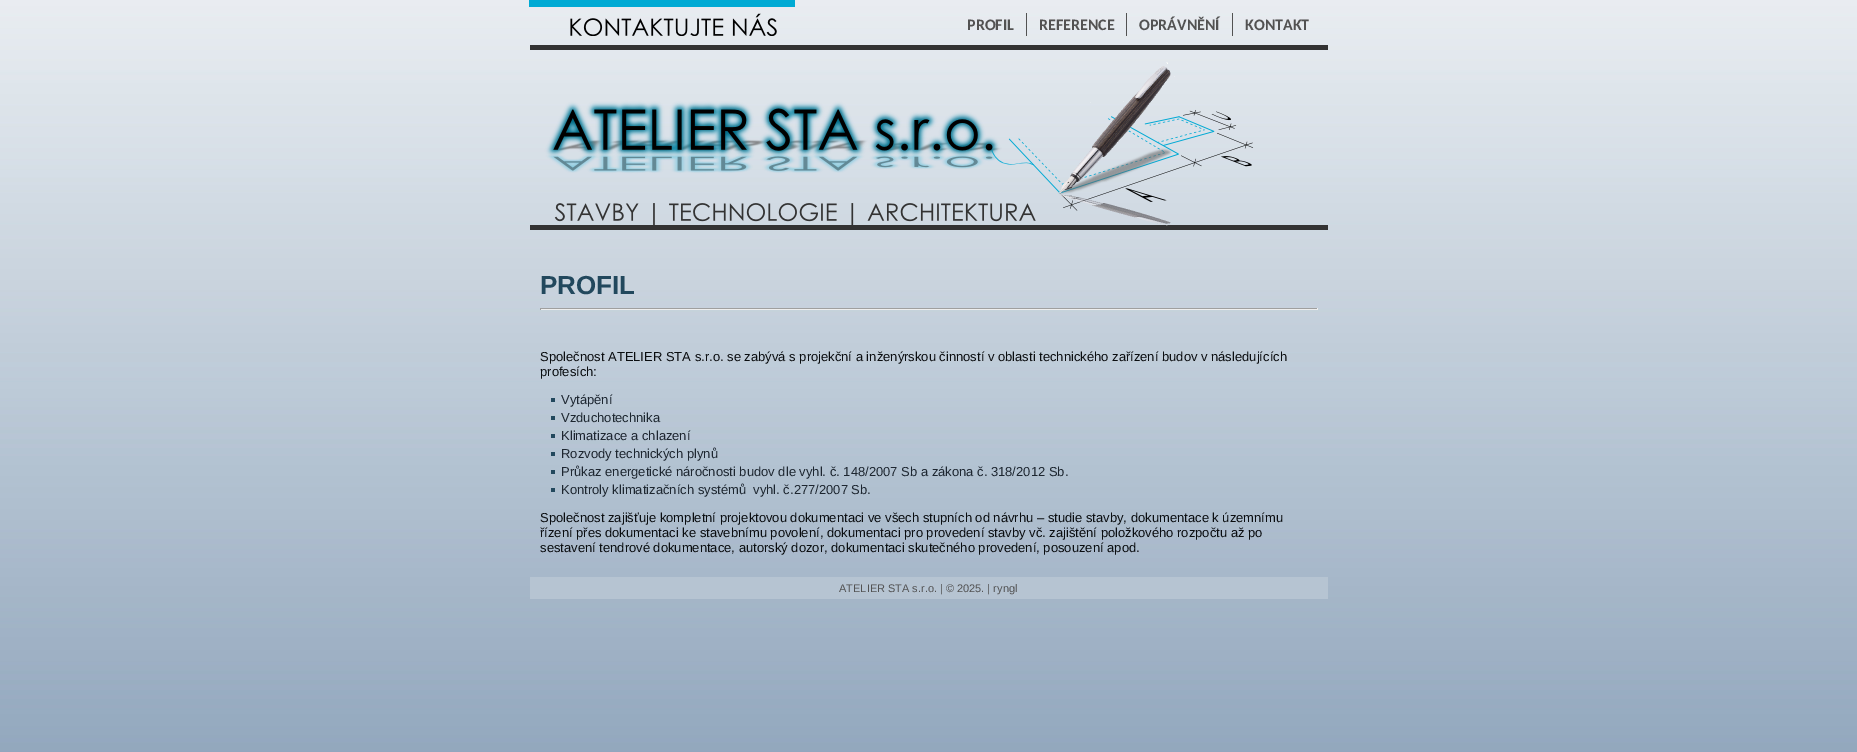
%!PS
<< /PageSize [1857 752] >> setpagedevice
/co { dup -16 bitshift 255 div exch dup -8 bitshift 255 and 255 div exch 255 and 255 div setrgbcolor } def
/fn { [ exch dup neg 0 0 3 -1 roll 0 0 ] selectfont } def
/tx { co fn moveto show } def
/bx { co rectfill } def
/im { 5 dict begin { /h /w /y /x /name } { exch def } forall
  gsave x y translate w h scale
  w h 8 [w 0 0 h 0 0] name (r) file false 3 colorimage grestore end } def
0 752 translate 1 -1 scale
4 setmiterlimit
0 0 1857 752 16#FFFFFF bx
(media/1.raw) 0 0 1857 752 im
(media/2.raw) 529 0 266 36 im
1026 13 1 23 16#525252 bx
1126 13 1 23 16#525252 bx
1232 13 1 23 16#525252 bx
(media/3.raw) 530 45 798 185 im
540 308 778 1 16#9F9F9F bx
1317 308 1 2 16#EEEEEE bx
540 309 778 1 16#EEEEEE bx
540 308 1 2 16#9F9F9F bx
551 398 4 4 16#22485D bx
551 416 4 4 16#22485D bx
551 434 4 4 16#22485D bx
551 452 4 4 16#22485D bx
551 470 4 4 16#22485D bx
551 488 4 4 16#22485D bx
530 577 798 22 16#B6C4D2 bx
(PROFIL) 967 30 /Carlito-Bold 16 16#525252 tx
(REFERENCE) 1039 30 /Carlito-Bold 16 16#525252 tx
(OPRÁVNĚNÍ) 1139 30 /Carlito-Bold 16 16#525252 tx
(KONTAKT) 1245 30 /Carlito-Bold 16 16#525252 tx
(PROFIL) 540 294 /LiberationSans-Bold 26 16#22485D tx
(Společnost ATELIER STA s.r.o. se zabývá s projekční a inženýrskou činností v oblasti technického zařízení budov v následujících) 540 361 /LiberationSans-Regular 13 16#0A0D10 tx
(profesích:) 540 376 /LiberationSans-Regular 13 16#0A0D10 tx
(Vytápění) 561 404 /LiberationSans-Regular 13 16#1D2630 tx
(Vzduchotechnika) 561 422 /LiberationSans-Regular 13 16#1D2630 tx
(Klimatizace a chlazení) 561 440 /LiberationSans-Regular 13 16#1D2630 tx
(Rozvody technických plynů) 561 458 /LiberationSans-Regular 13 16#1D2630 tx
(Průkaz energetické náročnosti budov dle vyhl. č. 148/2007 Sb a zákona č. 318/2012 Sb.) 561 476 /LiberationSans-Regular 13 16#1D2630 tx
(Kontroly klimatizačních systémů  vyhl. č.277/2007 Sb.) 561 494 /LiberationSans-Regular 13 16#1D2630 tx
(Společnost zajišťuje kompletní projektovou dokumentaci ve všech stupních od návrhu – studie stavby, dokumentace k územnímu) 540 522 /LiberationSans-Regular 13 16#0A0D10 tx
(řízení přes dokumentaci ke stavebnímu povolení, dokumentaci pro provedení stavby vč. zajištění položkového rozpočtu až po) 540 537 /LiberationSans-Regular 13 16#0A0D10 tx
(sestavení tendrové dokumentace, autorský dozor, dokumentaci skutečného provedení, posouzení apod.) 540 552 /LiberationSans-Regular 13 16#0A0D10 tx
(ATELIER STA s.r.o. | © 2025. | ryngl) 839 592 /LiberationSans-Regular 11 16#525252 tx
showpage
